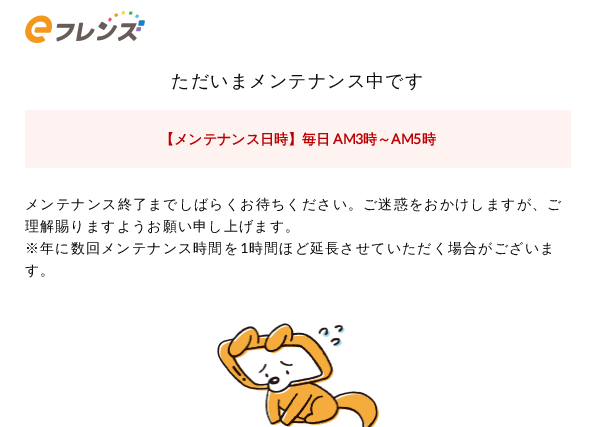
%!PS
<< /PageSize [596 427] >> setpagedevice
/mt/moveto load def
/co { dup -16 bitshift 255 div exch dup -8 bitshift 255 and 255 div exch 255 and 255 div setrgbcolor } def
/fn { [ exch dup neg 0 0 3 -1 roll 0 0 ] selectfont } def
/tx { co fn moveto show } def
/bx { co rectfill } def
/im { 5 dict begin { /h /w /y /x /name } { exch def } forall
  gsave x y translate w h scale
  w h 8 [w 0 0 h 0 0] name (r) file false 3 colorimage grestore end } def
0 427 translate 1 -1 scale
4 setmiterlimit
0 0 596 427 16#FFFFFF bx
(media/1.raw) 25 11 120 32 im
25 110 546 58 16#FFF3F1 bx
(media/2.raw) 217 323 162 104 im
/WenQuanYiZenHei-Medium 18 fn
16#0C0C0C co
171 87 mt 1.1 0 (ただいまメンテナンス中です) ashow
(【メンテナンス日時】毎日) 160 144 /WenQuanYiZenHei-Bold 14 16#BA0000 tx
(AM3) 333 144 /Lato-Bold 14 16#BA0000 tx
(時～) 363 144 /WenQuanYiZenHei-Bold 14 16#BA0000 tx
(AM5) 391 144 /Lato-Bold 14 16#BA0000 tx
(時) 422 144 /WenQuanYiZenHei-Bold 14 16#BA0000 tx
/WenQuanYiZenHei-Medium 14 fn
16#0C0C0C co
25 209 mt 1.1 0 (メンテナンス終了までしばらくお待ちください。ご迷惑をおかけしますが、ご) ashow
25 231 mt 1.1 0 (理解賜りますようお願い申し上げます。) ashow
25 253 mt 1.1 0 (※年に数回メンテナンス時間を) ashow
/Lato-Regular 14 fn
240 253 mt 1.1 0 (1) ashow
/WenQuanYiZenHei-Medium 14 fn
249 253 mt 1.1 0 (時間ほど延長させていただく場合がございま) ashow
25 275 mt 1.1 0 (す。) ashow
showpage
